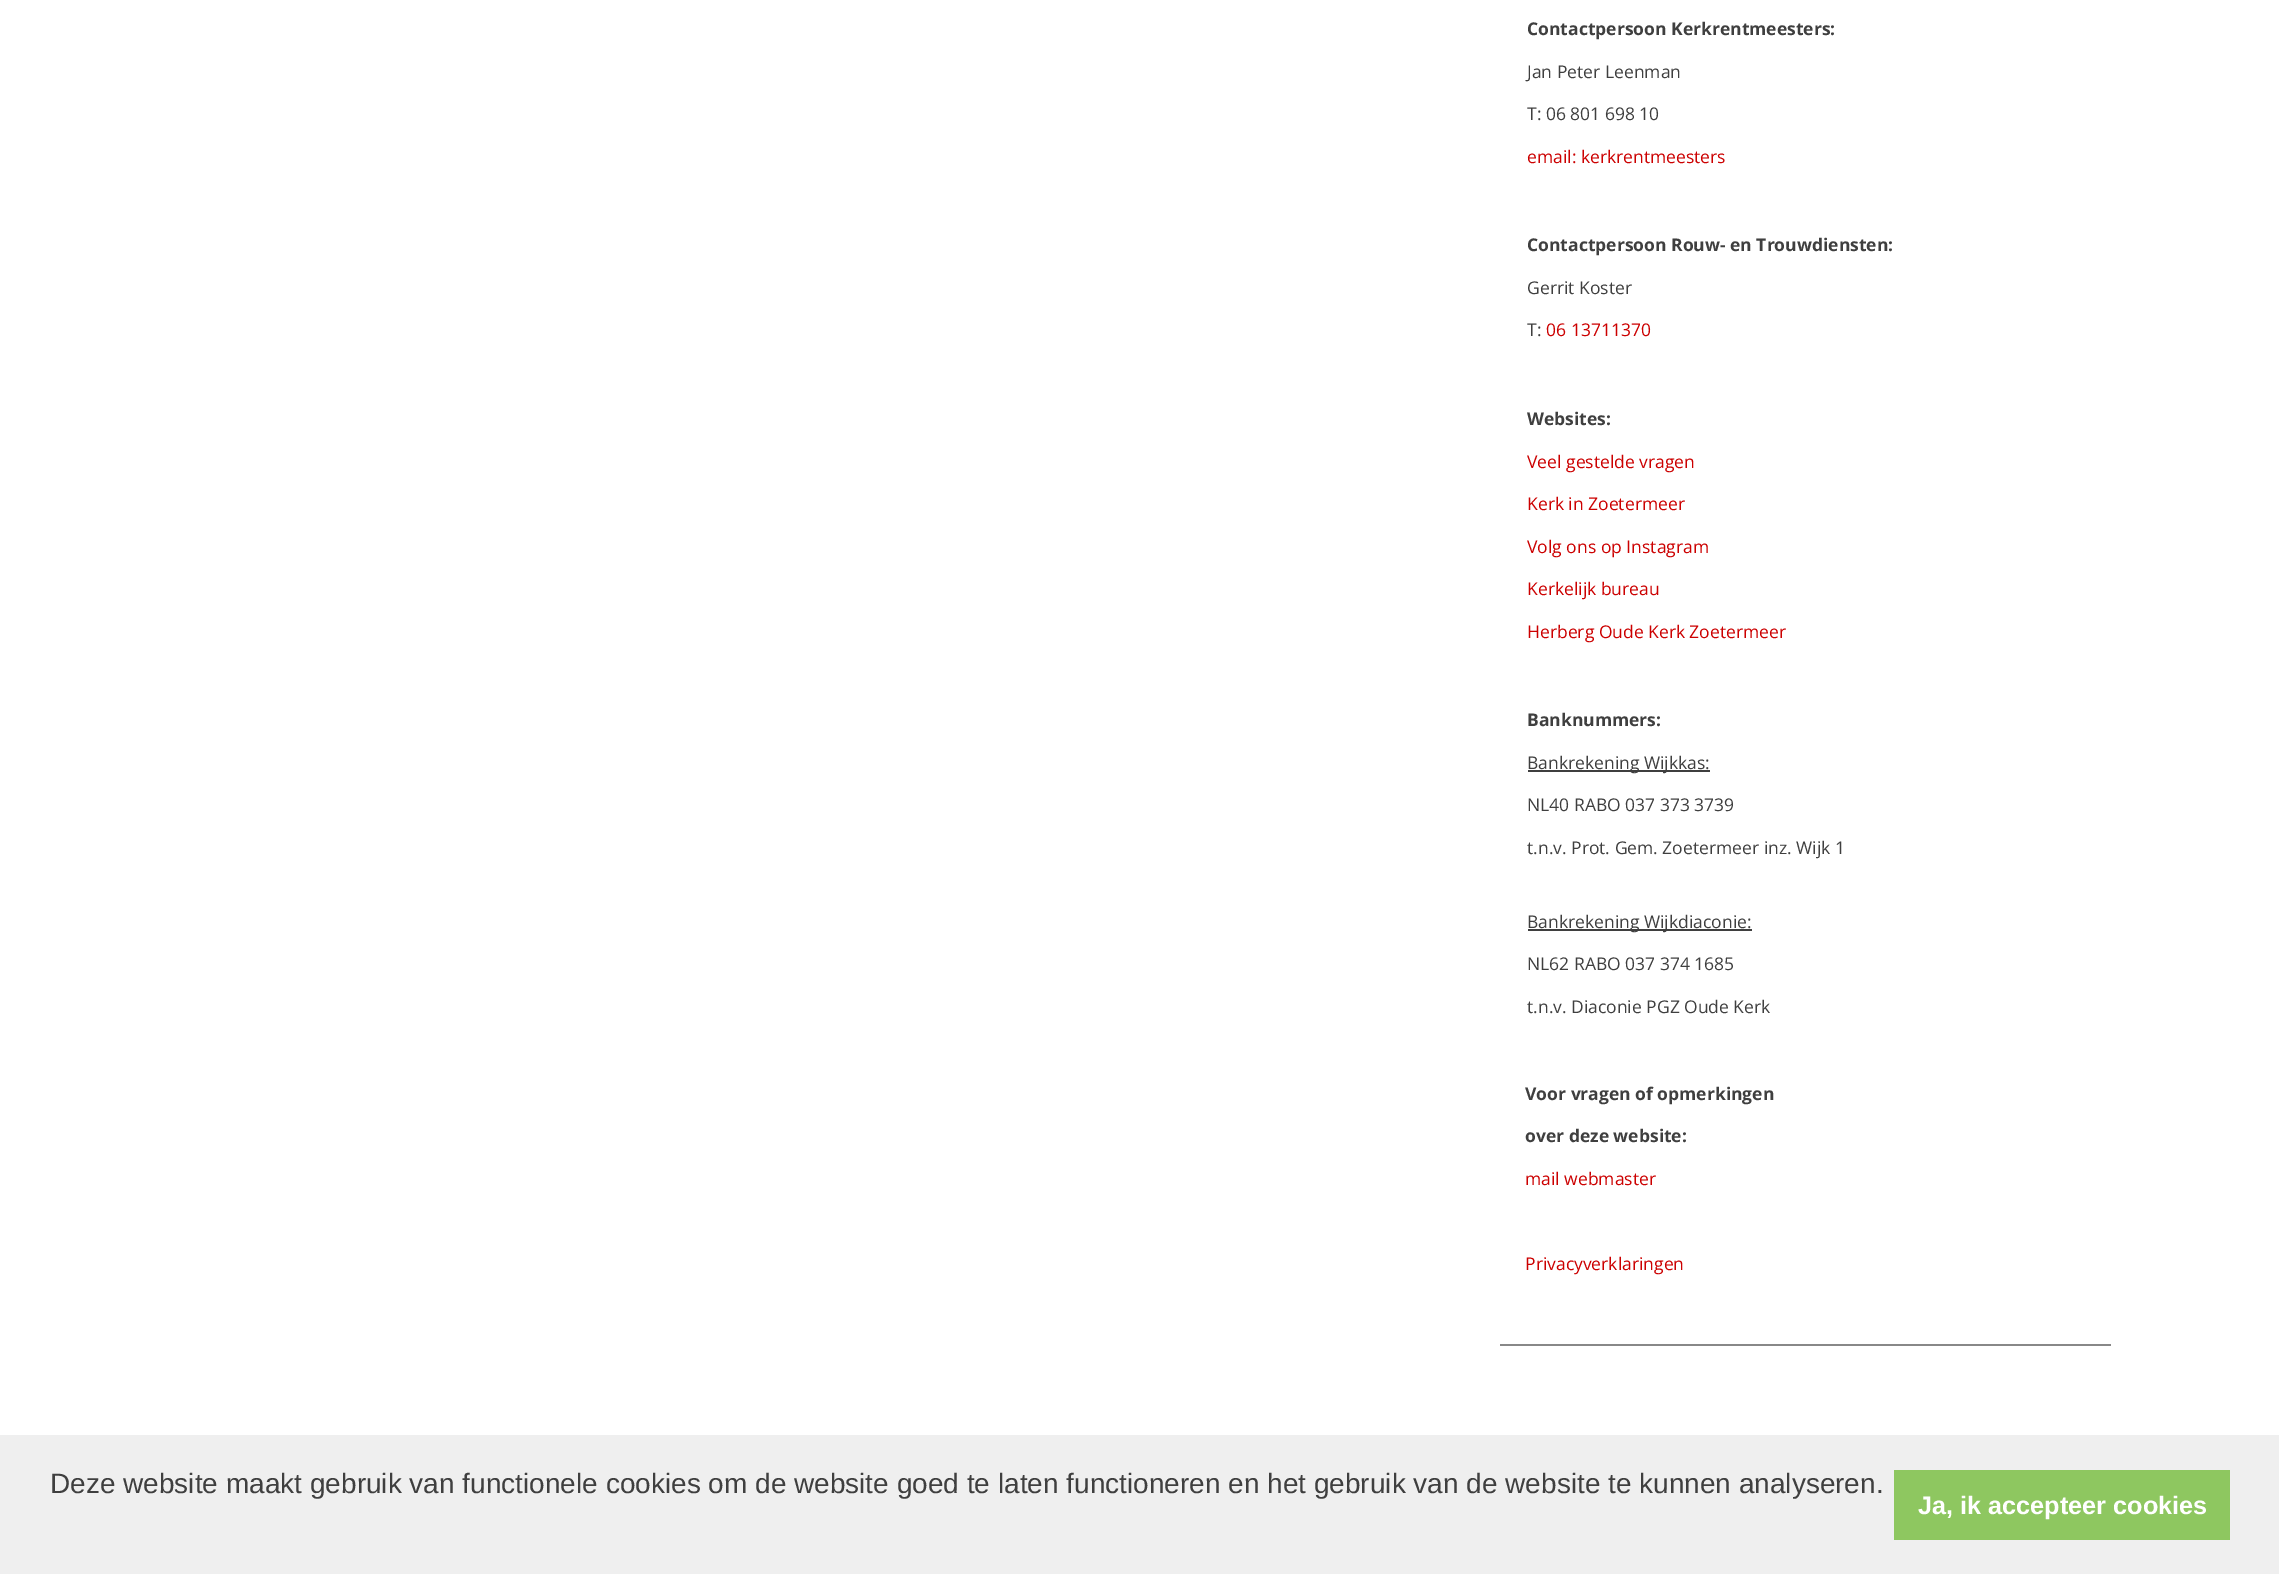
%!PS
<< /PageSize [2279 1574] >> setpagedevice
/co { dup -16 bitshift 255 div exch dup -8 bitshift 255 and 255 div exch 255 and 255 div setrgbcolor } def
/fn { [ exch dup neg 0 0 3 -1 roll 0 0 ] selectfont } def
/tx { co fn moveto show } def
/bx { co rectfill } def
0 1574 translate 1 -1 scale
4 setmiterlimit
0 0 2279 1574 16#FFFFFF bx
1500 1344 611 2 16#888888 bx
1528 770 182 2 16#3F3F3F bx
1528 929 224 2 16#3F3F3F bx
0 1435 2279 139 16#EFEFEF bx
1894 1470 336 70 16#8EC760 bx
(Contactpersoon Kerkrentmeesters:) 1527 35 /OpenSans-Bold 17.5 16#3F3F3F tx
(Jan Peter Leenman) 1527 78 /OpenSans-Regular 17.5 16#3F3F3F tx
(T: 06 801 698 10) 1527 120 /OpenSans-Regular 17.5 16#3F3F3F tx
(email: kerkrentmeesters) 1527 163 /OpenSans-Regular 17.5 16#CC0000 tx
(Contactpersoon Rouw- en Trouwdiensten:) 1527 251 /OpenSans-Bold 17.5 16#3F3F3F tx
(Gerrit Koster) 1527 294 /OpenSans-Regular 17.5 16#3F3F3F tx
(T:) 1527 336 /OpenSans-Regular 17.5 16#3F3F3F tx
(06 13711370) 1546 336 /OpenSans-Regular 17.5 16#CC0000 tx
(Websites:) 1527 425 /OpenSans-Bold 17.5 16#3F3F3F tx
(Veel gestelde vragen) 1527 468 /OpenSans-Regular 17.5 16#CC0000 tx
(Kerk in Zoetermeer) 1527 510 /OpenSans-Regular 17.5 16#CC0000 tx
(Volg ons op Instagram) 1527 553 /OpenSans-Regular 17.5 16#CC0000 tx
(Kerkelijk bureau) 1527 595 /OpenSans-Regular 17.5 16#CC0000 tx
(Herberg Oude Kerk Zoetermeer) 1527 638 /OpenSans-Regular 17.5 16#CC0000 tx
(Banknummers:) 1527 726 /OpenSans-Bold 17.5 16#3F3F3F tx
(Bankrekening Wijkkas:) 1527 769 /OpenSans-Regular 17.5 16#3F3F3F tx
(NL40 RABO 037 373 3739) 1527 811 /OpenSans-Regular 17.5 16#3F3F3F tx
(t.n.v. Prot. Gem. Zoetermeer inz. Wijk 1) 1527 854 /OpenSans-Regular 17.5 16#3F3F3F tx
(Bankrekening Wijkdiaconie:) 1527 928 /OpenSans-Regular 17.5 16#3F3F3F tx
(NL62 RABO 037 374 1685) 1527 970 /OpenSans-Regular 17.5 16#3F3F3F tx
(t.n.v. Diaconie PGZ Oude Kerk) 1527 1013 /OpenSans-Regular 17.5 16#3F3F3F tx
(Voor vragen of opmerkingen) 1525 1100 /OpenSans-Bold 17.5 16#3F3F3F tx
(over deze website:) 1525 1142 /OpenSans-Bold 17.5 16#3F3F3F tx
(mail webmaster) 1525 1185 /OpenSans-Regular 17.5 16#CC0000 tx
(Privacyverklaringen) 1525 1270 /OpenSans-Regular 17.5 16#CC0000 tx
(Deze website maakt gebruik van functionele cookies om de website goed te laten functioneren en het gebruik van de website te kunnen analyseren.) 50 1493 /LiberationSans-Regular 28 16#3F3F3F tx
(Ja, ik accepteer cookies) 1918 1514 /LiberationSans-Bold 25.25 16#FFFFFF tx
showpage
